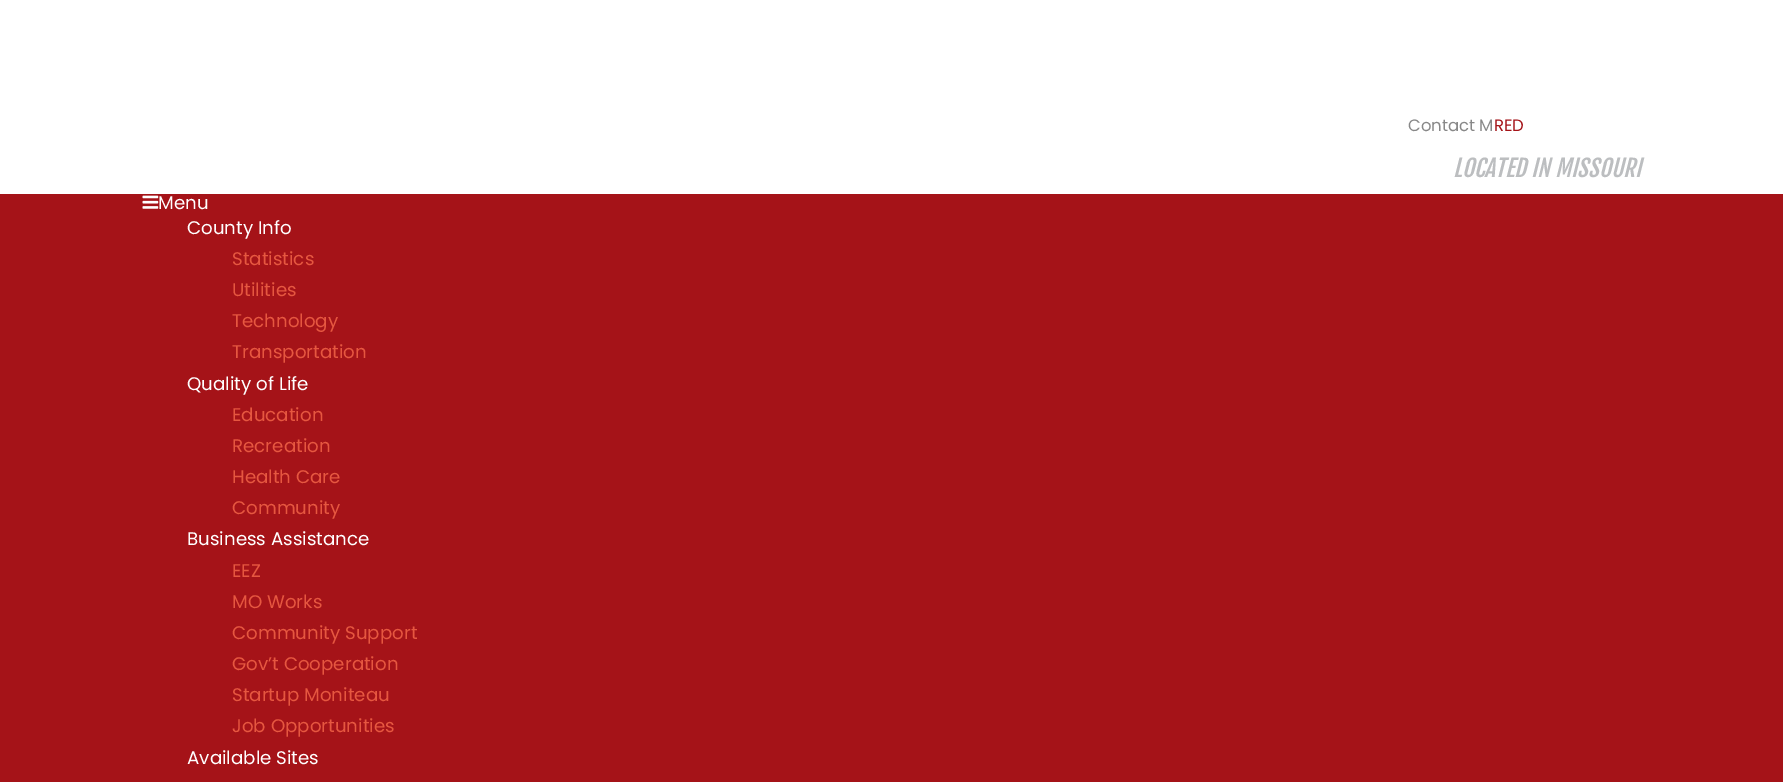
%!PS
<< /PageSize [1783 782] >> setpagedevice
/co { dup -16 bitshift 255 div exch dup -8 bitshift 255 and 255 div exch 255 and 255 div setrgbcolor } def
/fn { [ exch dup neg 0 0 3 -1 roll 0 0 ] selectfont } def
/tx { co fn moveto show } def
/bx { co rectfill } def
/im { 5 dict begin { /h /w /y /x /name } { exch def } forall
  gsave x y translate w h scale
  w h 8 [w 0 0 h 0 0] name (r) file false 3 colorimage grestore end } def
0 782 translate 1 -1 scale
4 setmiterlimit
0 0 1783 782 16#FFFFFF bx
0 194 1783 588 16#A51318 bx
(media/1.raw) 142 195 17 14 im
(Contact M) 1408 131 /Poppins-Regular 16.5 16#888888 tx
(RED) 1494 131 /Poppins-Regular 16.5 16#A51318 tx
(LOCATED IN MISSOURI) 1453 177 /FjallaOne-Italic 23.25 16#BCBEC0 tx
(Menu) 158 209 /Poppins-Regular 18.25 16#FFFFFF tx
(County Info) 187 234 /Poppins-Regular 18.25 16#FFFFFF tx
(Statistics) 232 265 /Poppins-Regular 18.25 16#E65740 tx
(Utilities) 232 296 /Poppins-Regular 18.25 16#E65740 tx
(Technology) 232 327 /Poppins-Regular 18.25 16#E65740 tx
(Transportation) 232 358 /Poppins-Regular 18.25 16#E65740 tx
(Quality of Life) 187 390 /Poppins-Regular 18.25 16#FFFFFF tx
(Education) 232 421 /Poppins-Regular 18.25 16#E65740 tx
(Recreation) 232 452 /Poppins-Regular 18.25 16#E65740 tx
(Health Care) 232 483 /Poppins-Regular 18.25 16#E65740 tx
(Community) 232 514 /Poppins-Regular 18.25 16#E65740 tx
(Business Assistance) 187 545 /Poppins-Regular 18.25 16#FFFFFF tx
(EEZ) 232 577 /Poppins-Regular 18.25 16#E65740 tx
(MO Works) 232 608 /Poppins-Regular 18.25 16#E65740 tx
(Community Support) 232 639 /Poppins-Regular 18.25 16#E65740 tx
(Gov’t Cooperation) 232 670 /Poppins-Regular 18.25 16#E65740 tx
(Startup Moniteau) 232 701 /Poppins-Regular 18.25 16#E65740 tx
(Job Opportunities) 232 732 /Poppins-Regular 18.25 16#E65740 tx
(Available Sites) 187 764 /Poppins-Regular 18.25 16#FFFFFF tx
showpage
